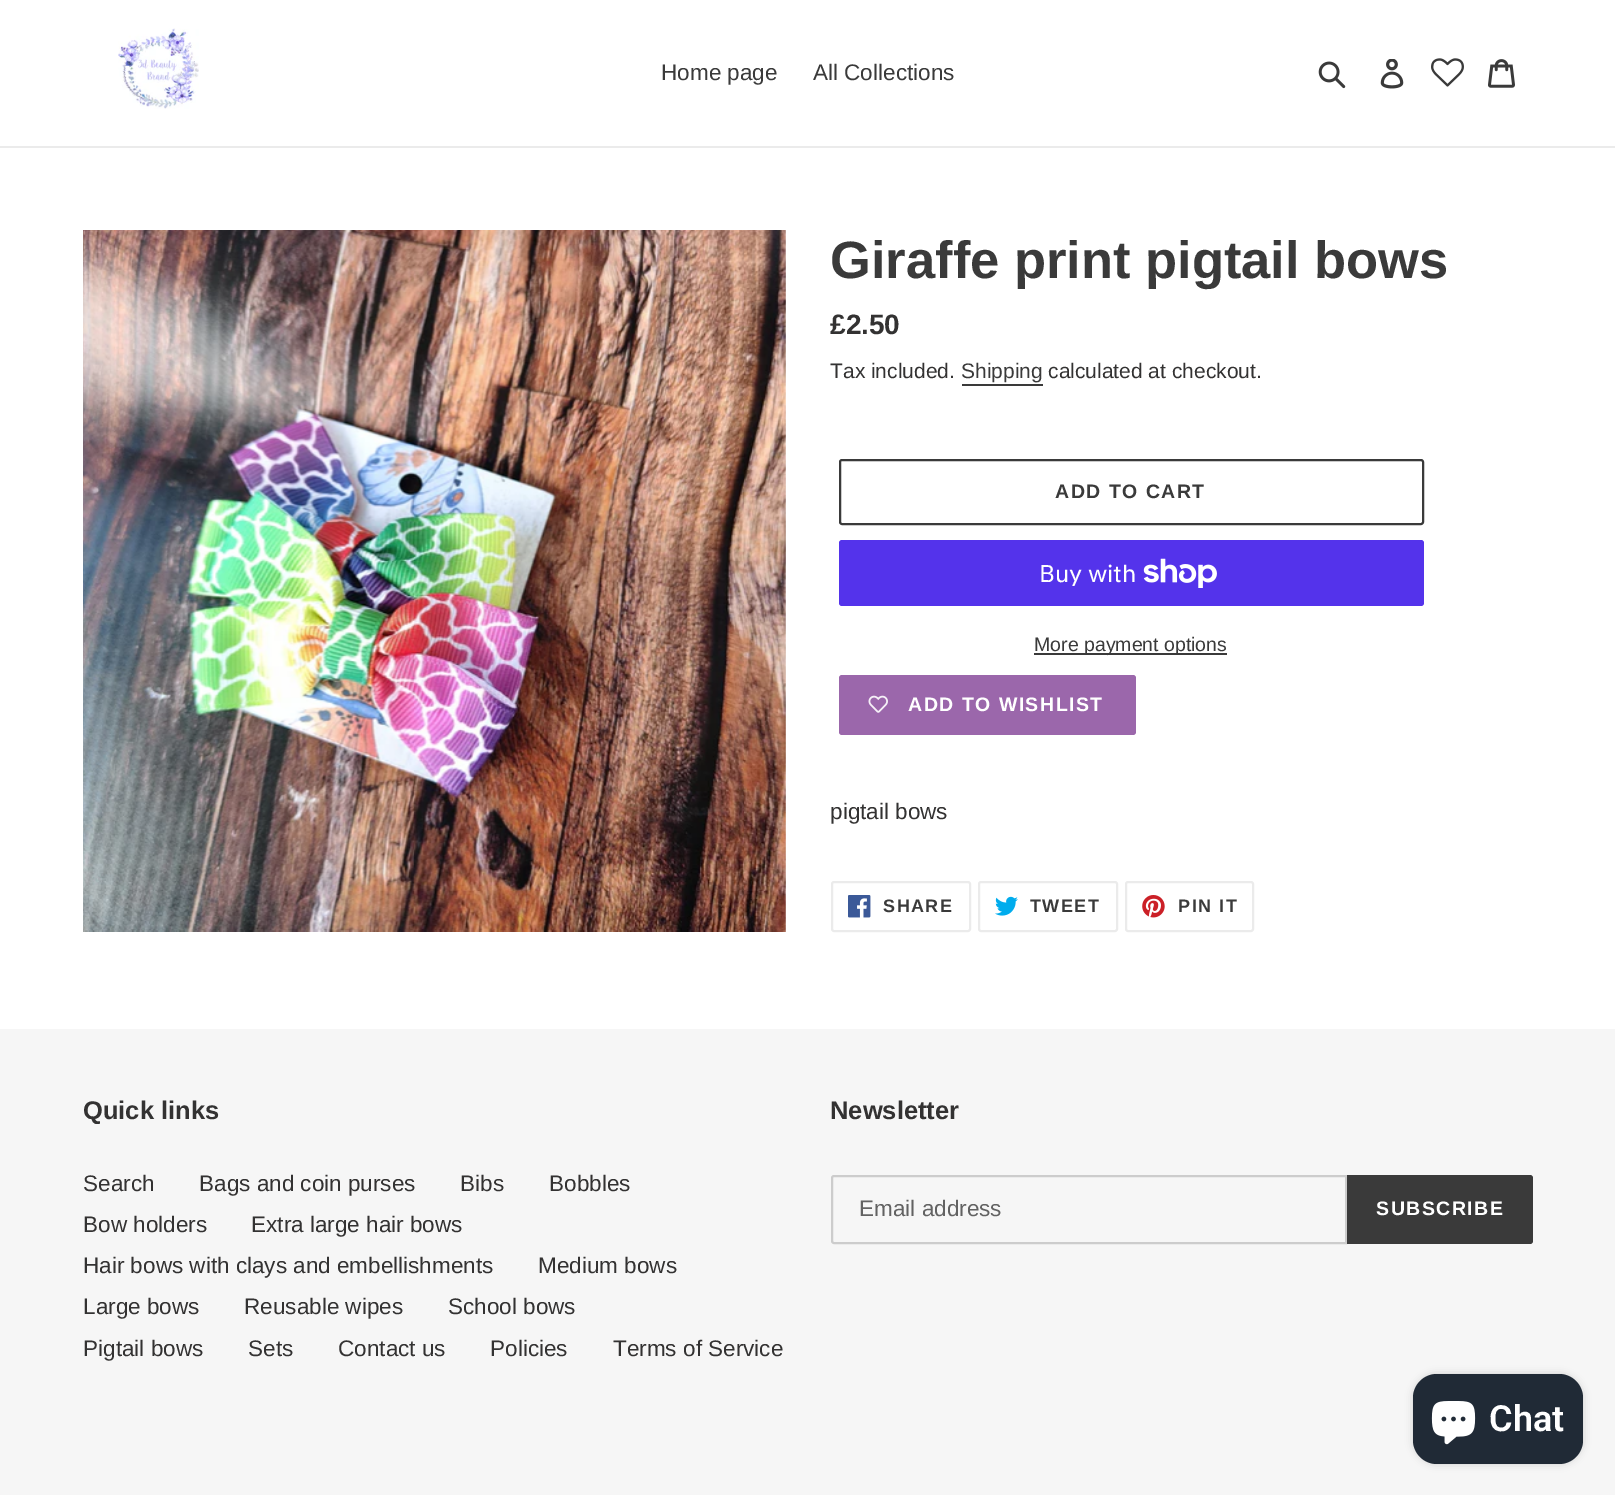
%!PS
<< /PageSize [1615 1495] /PageUsesTransparency true >> setpagedevice
/mt/moveto load def
/li/lineto load def
/ct/curveto load def
/cp/closepath load def
/fl/fill load def
/st/stroke load def
/lw/setlinewidth load def
/co { dup -16 bitshift 255 div exch dup -8 bitshift 255 and 255 div exch 255 and 255 div setrgbcolor } def
/fn { [ exch dup neg 0 0 3 -1 roll 0 0 ] selectfont } def
/tx { co fn moveto show } def
/bx { co rectfill } def
/al { dup .setfillconstantalpha .setstrokeconstantalpha } def
/rr { 5 dict begin { /r /h /w /y /x } { exch def } forall
  x r add y moveto x w add y 2 copy h add r arct x w add y h add x 1 index r arct
  x y h add x y r arct x y 2 copy exch w add exch r arct closepath end } def
/sh { 12 dict begin { /a /b /q /h /w /y /x } { exch def } forall gsave /was 0 def
  9 -2 -9 { dup b mul 4 div /e exch def 1 sub .425 mul 2.718 exch exp 1 add a .99 .min exch div /now exch def
    1 1 now sub 1 was sub div sub al /was now def
    w h .min e 2 mul add 0 gt { x e sub y e sub w e 2 mul add h e 2 mul add
      q e add b .6 mul add w h .min 2 div e add .min 0 .max rr fill } if } for grestore end } def
/im { 5 dict begin { /h /w /y /x /name } { exch def } forall
  gsave x y translate w h scale
  w h 8 [w 0 0 h 0 0] name (r) file false 3 colorimage grestore end } def
0 .pushpdf14devicefilter
0 1495 translate 1 -1 scale
4 setmiterlimit
0 0 1615 1495 16#FFFFFF bx
0 146 1615 2 16#EBEBEB bx
(media/1.raw) 118 28 81 81 im
(media/2.raw) 1318 61 28 28 im
(media/3.raw) 1380 59 24 30 im
(media/4.raw) 1431 58 33 29 im
(media/5.raw) 1488 59 27 29 im
(media/6.raw) 83 230 703 702 im
962 384 81 2 16#3A3A3A bx
2 lw
840 460 583 64 2 rr st
16#5433EB co
839 540 585 66 3 rr fl
(media/7.raw) 1143 558 74 30 im
1034 653 193 2 16#3A3A3A bx
16#9B67AB co
839 675 297 60 3 rr fl
(media/8.raw) 868 695 20 18 im
16#EBEBEB co
832 882 138 49 2 rr st
(media/9.raw) 848 895 23 23 im
979 882 138 49 2 rr st
(media/10.raw) 995 896 23 20 im
1126 882 127 49 2 rr st
(media/11.raw) 1142 895 23 23 im
0 1029 1615 466 16#F6F6F6 bx
16#CCCCCC co
834 1176 mt 1346 1176 li 1346 1243 li 834 1243 li 833 1243 832 1242 832 1241 ct 832 1178 li 832 1177 833 1176 834 1176 ct cp st
16#3A3A3A co
1347 1175 mt 1530 1175 li 1531.5 1175 1533 1176.5 1533 1178 ct 1533 1241 li 1533 1242.5 1531.5 1244 1530 1244 ct 1347 1244 li cp fl
16#000000 co
1413 1374 170 90 24 4 .15 sh
16#202A36 co
1413 1374 170 90 24 rr fl
(media/12.raw) 1431 1401 45 44 im
(Home page) 661 80 /LiberationSans-Regular 22.5 16#3A3A3A tx
(All Collections) 813 80 /LiberationSans-Regular 22.5 16#3A3A3A tx
(Giraffe print pigtail bows) 830 278 /LiberationSans-Bold 52.5 16#3A3A3A tx
(£2.50) 830 334 /LiberationSans-Bold 28 16#333232 tx
(Tax included.) 830 378 /LiberationSans-Regular 21 16#333232 tx
(Shipping) 961 378 /LiberationSans-Regular 21 16#3A3A3A tx
(calculated at checkout.) 1048 378 /LiberationSans-Regular 21 16#333232 tx
/LiberationSans-Bold 19.5 fn
16#3A3A3A co
1055 498 mt 1.5 0 (ADD TO CART) ashow
(Buy with) 1039 582 /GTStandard-Regular 24 16#FFFFFF tx
(More payment options) 1034 651 /LiberationSans-Regular 19.5 16#3A3A3A tx
/LiberationSans-Bold 19.5 fn
16#FFFFFF co
908 711 mt 1.5 0 (ADD TO WISHLIST) ashow
(pigtail bows) 830 819 /LiberationSans-Regular 22.5 16#333232 tx
/LiberationSans-Bold 18 fn
16#3A3A3A co
883 912 mt 1.5 0 (SHARE) ashow
1030 912 mt 1.5 0 (TWEET) ashow
1178 912 mt 1.5 0 (PIN IT) ashow
(Quick links) 83 1119 /LiberationSans-Bold 25.5 16#333232 tx
(Search) 83 1191 /LiberationSans-Regular 22.5 16#333232 tx
(Bags and coin purses) 199 1191 /LiberationSans-Regular 22.5 16#333232 tx
(Bibs) 460 1191 /LiberationSans-Regular 22.5 16#333232 tx
(Bobbles) 549 1191 /LiberationSans-Regular 22.5 16#333232 tx
(Bow holders) 83 1232 /LiberationSans-Regular 22.5 16#333232 tx
(Extra large hair bows) 251 1232 /LiberationSans-Regular 22.5 16#333232 tx
(Hair bows with clays and embellishments) 83 1273 /LiberationSans-Regular 22.5 16#333232 tx
(Medium bows) 538 1273 /LiberationSans-Regular 22.5 16#333232 tx
(Large bows) 83 1314 /LiberationSans-Regular 22.5 16#333232 tx
(Reusable wipes) 244 1314 /LiberationSans-Regular 22.5 16#333232 tx
(School bows) 448 1314 /LiberationSans-Regular 22.5 16#333232 tx
(Pigtail bows) 83 1356 /LiberationSans-Regular 22.5 16#333232 tx
(Sets) 248 1356 /LiberationSans-Regular 22.5 16#333232 tx
(Contact us) 338 1356 /LiberationSans-Regular 22.5 16#333232 tx
(Policies) 490 1356 /LiberationSans-Regular 22.5 16#333232 tx
(Terms of Service) 613 1356 /LiberationSans-Regular 22.5 16#333232 tx
(Newsletter) 830 1119 /LiberationSans-Bold 25.5 16#333232 tx
(Email address) 859 1216 /LiberationSans-Regular 22.5 16#626262 tx
/LiberationSans-Bold 19.5 fn
16#FFFFFF co
1376 1215 mt 1.5 0 (SUBSCRIBE) ashow
(Chat) 1489 1431 /Roboto-SemiBold 36 16#FFFFFF tx
.poppdf14devicefilter showpage
